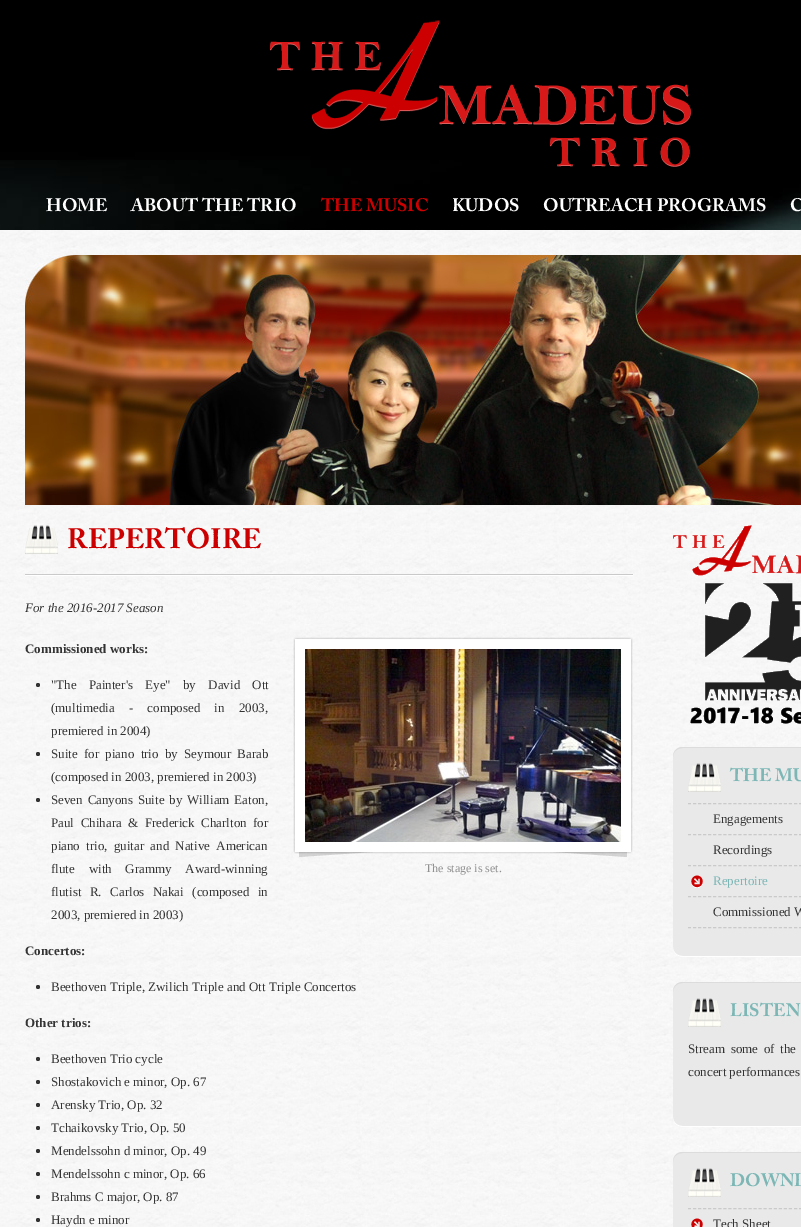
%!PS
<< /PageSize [801 1227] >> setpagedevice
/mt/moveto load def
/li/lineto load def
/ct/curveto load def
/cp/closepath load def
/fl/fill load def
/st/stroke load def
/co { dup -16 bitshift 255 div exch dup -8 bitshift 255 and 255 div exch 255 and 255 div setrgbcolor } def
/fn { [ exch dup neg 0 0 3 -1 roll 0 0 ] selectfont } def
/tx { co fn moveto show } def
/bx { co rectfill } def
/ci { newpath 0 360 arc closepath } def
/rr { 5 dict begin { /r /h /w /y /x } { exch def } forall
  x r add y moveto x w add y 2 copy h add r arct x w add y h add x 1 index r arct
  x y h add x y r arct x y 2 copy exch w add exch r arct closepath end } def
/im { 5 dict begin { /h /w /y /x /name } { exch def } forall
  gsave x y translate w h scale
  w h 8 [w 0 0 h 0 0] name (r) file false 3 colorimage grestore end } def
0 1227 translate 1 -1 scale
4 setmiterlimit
0 0 801 1227 16#FFFFFF bx
(media/1.raw) 0 0 801 230 im
(media/2.raw) 270 20 421 147 im
(media/3.raw) 0 230 801 997 im
(media/4.raw) 25 255 776 250 im
(media/5.raw) 25 525 33 29 im
(media/6.raw) 25 574 608 2 im
16#333333 co
38 685 2 ci fl
38 754 2 ci fl
38 800 2 ci fl
(media/7.raw) 293 637 340 220 im
(media/8.raw) 305 649 316 193 im
38 987 2 ci fl
38 1059 2 ci fl
38 1082 2 ci fl
38 1105 2 ci fl
38 1128 2 ci fl
38 1151 2 ci fl
38 1174 2 ci fl
38 1197 2 ci fl
38 1220 2 ci fl
(media/9.raw) 673 525 128 199 im
16#E9E9E9 co
673 747 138 210 10 rr fl
16#DCDCDC co
683 747 mt 677 747 673 751 673 757 ct 673 752 677 748 683 748 ct 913 748 li 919 748 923 752 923 757 ct 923 751 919 747 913 747 ct cp fl
16#FFFFFF co
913 957 mt 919 957 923 953 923 947 ct 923 952 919 956 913 956 ct 683 956 li 677 956 673 952 673 947 ct 673 953 677 957 683 957 ct cp fl
(media/10.raw) 688 763 33 29 im
16#CACACA co
[3 2.05] 0 setdash
688 803.5 mt 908 803.5 li st
688 834.5 mt 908 834.5 li st
688 865.5 mt 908 865.5 li st
(media/11.raw) 691 875 12 13 im
688 896.5 mt 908 896.5 li st
688 927.5 mt 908 927.5 li st
16#E9E9E9 co
673 982 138 145 10 rr fl
16#DCDCDC co
683 982 mt 677 982 673 986 673 992 ct 673 987 677 983 683 983 ct 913 983 li 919 983 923 987 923 992 ct 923 986 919 982 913 982 ct cp fl
16#FFFFFF co
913 1127 mt 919 1127 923 1123 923 1117 ct 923 1122 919 1126 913 1126 ct 683 1126 li 677 1126 673 1122 673 1117 ct 673 1123 677 1127 683 1127 ct cp fl
(media/10.raw) 688 998 33 29 im
16#E9E9E9 co
673 1152 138 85 10 rr fl
16#DCDCDC co
683 1152 mt 677 1152 673 1156 673 1162 ct 673 1157 677 1153 683 1153 ct 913 1153 li 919 1153 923 1157 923 1162 ct 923 1156 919 1152 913 1152 ct cp fl
(media/10.raw) 688 1168 33 29 im
16#CACACA co
688 1208.5 mt 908 1208.5 li st
(media/12.raw) 691 1218 12 9 im
(HOME) 46 211 /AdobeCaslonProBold-Bold 18 16#FFFFFF tx
(ABOUT THE TRIO) 131 211 /AdobeCaslonProBold-Bold 18 16#FFFFFF tx
(THE MUSIC) 321 211 /AdobeCaslonProBold-Bold 18 16#CC0000 tx
(KUDOS) 452 211 /AdobeCaslonProBold-Bold 18 16#FFFFFF tx
(OUTREACH PROGRAMS) 543 211 /AdobeCaslonProBold-Bold 18 16#FFFFFF tx
(C) 790 211 /AdobeCaslonProBold-Bold 18 16#FFFFFF tx
(REPERTOIRE) 67 548 /AdobeCaslonProBold-Bold 28 16#CC0000 tx
(For the 2016-2017 Season) 25 612 /LiberationSerif-Italic 13 16#333333 tx
(Commissioned works:) 25 653 /LiberationSerif-Bold 13 16#333333 tx
/LiberationSerif-Regular 13 fn
51 689 mt 9 0 32 ("The Painter's Eye" by David Ott) widthshow
51 712 mt 11 0 32 (\(multimedia - composed in 2003,) widthshow
(premiered in 2004\)) 51 735 /LiberationSerif-Regular 13 16#333333 tx
51 758 mt 3 0 32 (Suite for piano trio by Seymour Barab) widthshow
(\(composed in 2003, premiered in 2003\)) 51 781 /LiberationSerif-Regular 13 16#333333 tx
51 804 mt 1.5 0 32 (Seven Canyons Suite by William Eaton,) widthshow
51 827 mt 3.25 0 32 (Paul Chihara & Frederick Charlton for) widthshow
51 850 mt 3 0 32 (piano trio, guitar and Native American) widthshow
51 873 mt 10.5 0 32 (flute with Grammy Award-winning) widthshow
51 896 mt 5.25 0 32 (flutist R. Carlos Nakai \(composed in) widthshow
(2003, premiered in 2003\)) 51 919 /LiberationSerif-Regular 13 16#333333 tx
(The stage is set.) 425 872 /LiberationSerif-Regular 12 16#909090 tx
(Concertos:) 25 955 /LiberationSerif-Bold 13 16#333333 tx
(Beethoven Triple, Zwilich Triple and Ott Triple Concertos) 51 991 /LiberationSerif-Regular 13 16#333333 tx
(Other trios:) 25 1027 /LiberationSerif-Bold 13 16#333333 tx
(Beethoven Trio cycle) 51 1063 /LiberationSerif-Regular 13 16#333333 tx
(Shostakovich e minor, Op. 67) 51 1086 /LiberationSerif-Regular 13 16#333333 tx
(Arensky Trio, Op. 32) 51 1109 /LiberationSerif-Regular 13 16#333333 tx
(Tchaikovsky Trio, Op. 50) 51 1132 /LiberationSerif-Regular 13 16#333333 tx
(Mendelssohn d minor, Op. 49) 51 1155 /LiberationSerif-Regular 13 16#333333 tx
(Mendelssohn c minor, Op. 66) 51 1178 /LiberationSerif-Regular 13 16#333333 tx
(Brahms C major, Op. 87) 51 1201 /LiberationSerif-Regular 13 16#333333 tx
(Haydn e minor) 51 1224 /LiberationSerif-Regular 13 16#333333 tx
(THE MU) 730 781 /AdobeCaslonProBold-Bold 18 16#7CB7B6 tx
(Engagements) 713 823 /LiberationSerif-Regular 13 16#333333 tx
(Recordings) 713 854 /LiberationSerif-Regular 13 16#333333 tx
(Repertoire) 713 885 /LiberationSerif-Regular 13 16#7CB7B6 tx
(Commissioned W) 713 916 /LiberationSerif-Regular 13 16#333333 tx
(LISTEN) 730 1016 /AdobeCaslonProBold-Bold 18 16#7CB7B6 tx
/LiberationSerif-Regular 13 fn
16#333333 co
688 1053 mt 2.5 0 32 (Stream some of the) widthshow
(concert performances) 688 1076 /LiberationSerif-Regular 13 16#333333 tx
(DOWNL) 730 1186 /AdobeCaslonProBold-Bold 18 16#7CB7B6 tx
(Tech Sheet) 713 1228 /LiberationSerif-Regular 13 16#333333 tx
showpage
